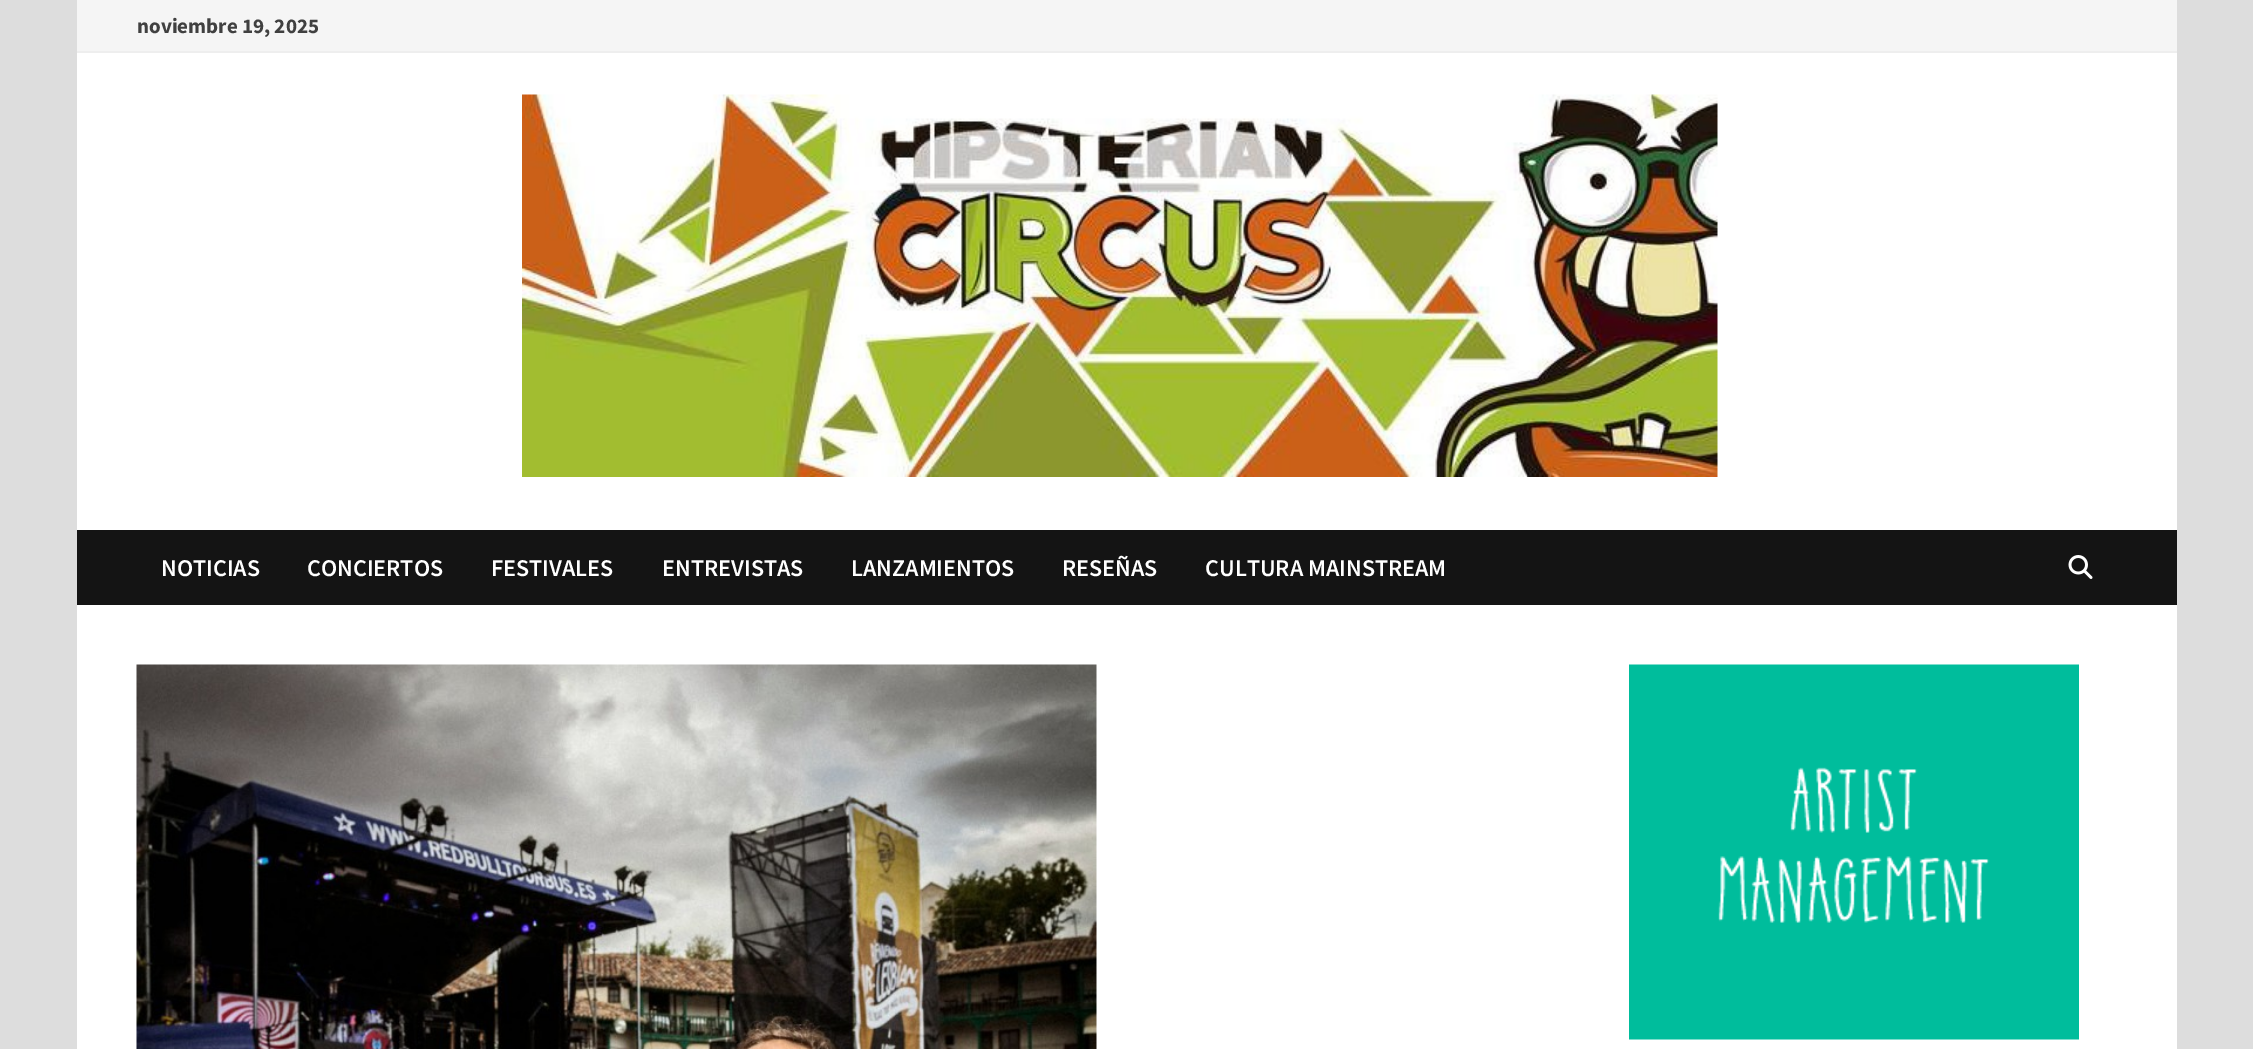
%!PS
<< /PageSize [2253 1049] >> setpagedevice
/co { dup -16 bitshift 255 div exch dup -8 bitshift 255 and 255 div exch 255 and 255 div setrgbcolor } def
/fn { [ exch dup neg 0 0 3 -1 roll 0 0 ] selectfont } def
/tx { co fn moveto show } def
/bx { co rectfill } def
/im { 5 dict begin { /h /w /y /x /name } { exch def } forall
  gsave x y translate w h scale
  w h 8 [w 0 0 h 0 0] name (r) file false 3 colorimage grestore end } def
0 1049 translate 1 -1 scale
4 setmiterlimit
0 0 2253 1049 16#DDDDDD bx
77 53 2100 996 16#FFFFFF bx
77 0 2100 51 16#F5F5F5 bx
77 51 2100 2 16#EEEEEE bx
(media/1.raw) 522 94 1196 383 im
77 530 2100 75 16#141414 bx
(media/2.raw) 2068 555 25 24 im
(media/3.raw) 136 664 961 385 im
(media/4.raw) 1629 664 450 376 im
(noviembre 19, 2025) 137 33 /SourceSansPro-Bold 21 16#404040 tx
(NOTICIAS) 161 576 /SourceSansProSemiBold-SemiBold 24 16#FFFFFF tx
(CONCIERTOS) 307 576 /SourceSansProSemiBold-SemiBold 24 16#FFFFFF tx
(FESTIVALES) 491 576 /SourceSansProSemiBold-SemiBold 24 16#FFFFFF tx
(ENTREVISTAS) 662 576 /SourceSansProSemiBold-SemiBold 24 16#FFFFFF tx
(LANZAMIENTOS) 851 576 /SourceSansProSemiBold-SemiBold 24 16#FFFFFF tx
(RESEÑAS) 1062 576 /SourceSansProSemiBold-SemiBold 24 16#FFFFFF tx
(CULTURA MAINSTREAM) 1205 576 /SourceSansProSemiBold-SemiBold 24 16#FFFFFF tx
showpage
